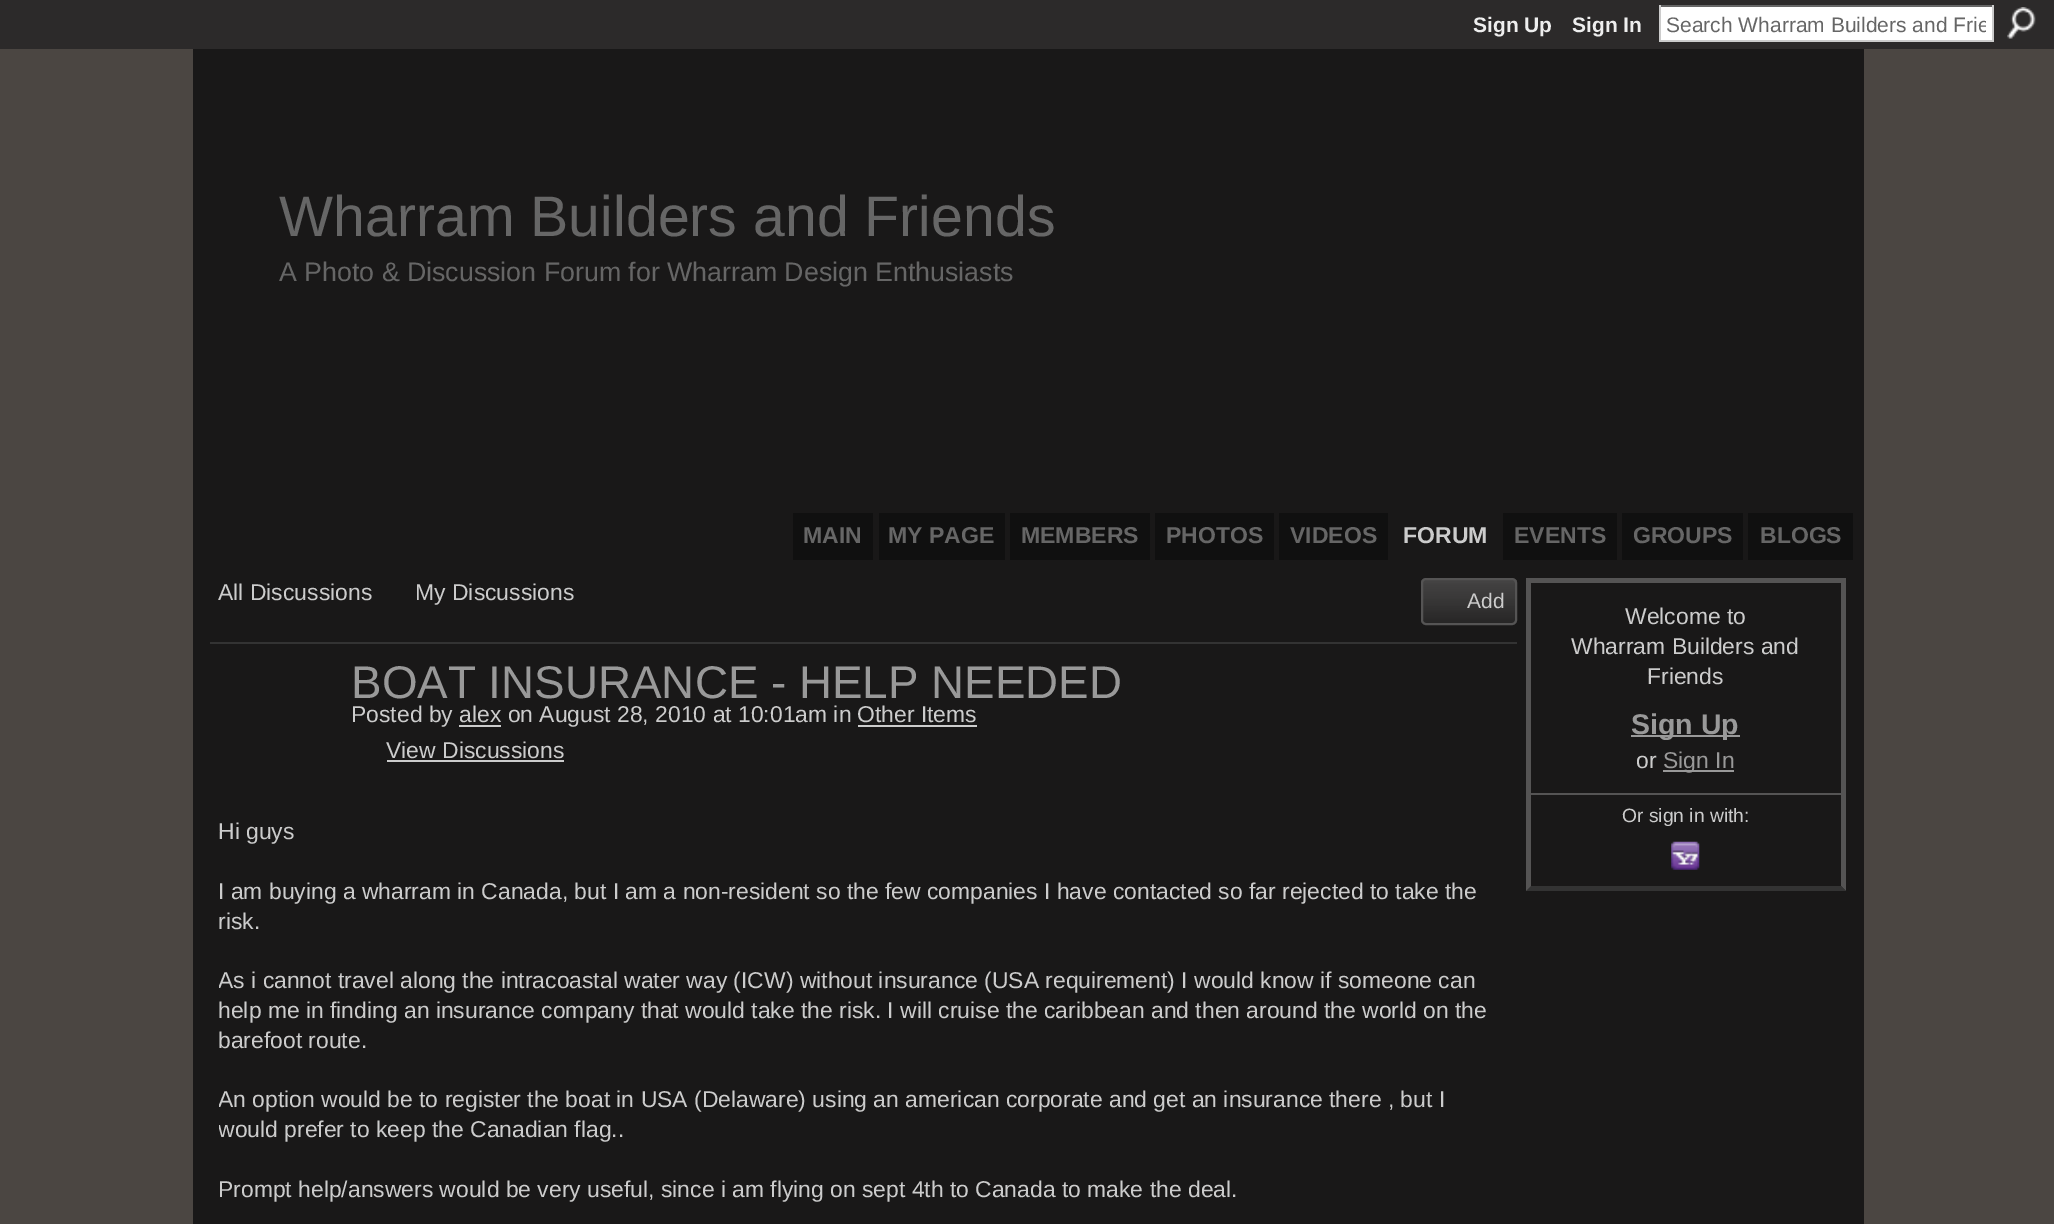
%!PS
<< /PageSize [2054 1224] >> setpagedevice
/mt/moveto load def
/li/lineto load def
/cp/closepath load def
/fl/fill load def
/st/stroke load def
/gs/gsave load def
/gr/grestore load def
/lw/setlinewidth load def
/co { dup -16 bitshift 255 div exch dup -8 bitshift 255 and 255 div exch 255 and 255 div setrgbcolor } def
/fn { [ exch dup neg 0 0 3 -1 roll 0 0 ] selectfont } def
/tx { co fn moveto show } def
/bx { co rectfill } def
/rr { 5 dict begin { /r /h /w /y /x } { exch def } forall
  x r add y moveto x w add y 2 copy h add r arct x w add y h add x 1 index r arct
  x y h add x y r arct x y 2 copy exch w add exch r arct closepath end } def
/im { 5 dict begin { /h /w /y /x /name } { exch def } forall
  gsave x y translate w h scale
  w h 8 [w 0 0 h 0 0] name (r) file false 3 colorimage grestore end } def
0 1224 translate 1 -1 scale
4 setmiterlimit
0 0 2054 1224 16#4B4642 bx
0 0 2054 49 16#2C2A2A bx
1661 7 331 33 16#FFFFFF bx
1659 5 334 2 16#666666 bx
1992 5 2 37 16#CCCCCC bx
1659 40 334 2 16#CCCCCC bx
1659 5 2 37 16#CCCCCC bx
(media/1.raw) 2007 7 29 32 im
193 49 1671 1175 16#191818 bx
793 513 80 47 16#101010 bx
879 513 126 47 16#101010 bx
1010 513 140 47 16#101010 bx
1155 513 119 47 16#101010 bx
1279 513 109 47 16#101010 bx
1503 513 114 47 16#101010 bx
1622 513 121 47 16#101010 bx
1748 513 105 47 16#101010 bx
210 642 1307 2 16#333333 bx
(media/2.raw) 1421 579 96 46 im
16#555454 co
2 lw
1422 579 94 45 4 rr st
858 725 119 2 16#CCCCCC bx
459 725 42 2 16#CCCCCC bx
387 760 177 2 16#CCCCCC bx
1526 578 320 5 16#555454 bx
1846 578 mt 1846 891 li 1841 886 li 1841 583 li cp fl
16#333333 co
1846 891 mt 1526 891 li 1531 886 li 1841 886 li cp fl
16#555454 co
1526 891 mt 1526 578 li 1531 583 li 1531 886 li cp fl
1631 735 109 2 16#999999 bx
1663 770 71 2 16#999999 bx
1531 793 310 2 16#555454 bx
(media/3.raw) 1671 841 29 29 im
(Sign Up) 1473 32 /LiberationSans-Bold 21 16#EEEEEE tx
(Sign In) 1572 32 /LiberationSans-Bold 21 16#EEEEEE tx
gs
1666 12 320 25 rectclip
(Search Wharram Builders and Frie) 1666 32 /LiberationSans-Regular 21 16#666666 tx
gr
(Wharram Builders and Friends) 279 236 /LiberationSans-Regular 57.25 16#666666 tx
(A Photo & Discussion Forum for Wharram Design Enthusiasts) 279 281 /LiberationSans-Regular 26.75 16#666666 tx
(MAIN) 803 543 /LiberationSans-Bold 23 16#666666 tx
(MY PAGE) 888 543 /LiberationSans-Bold 23 16#666666 tx
(MEMBERS) 1021 543 /LiberationSans-Bold 23 16#666666 tx
(PHOTOS) 1166 543 /LiberationSans-Bold 23 16#666666 tx
(VIDEOS) 1290 543 /LiberationSans-Bold 23 16#666666 tx
(FORUM) 1403 543 /LiberationSans-Bold 23 16#CCCCCC tx
(EVENTS) 1514 543 /LiberationSans-Bold 23 16#666666 tx
(GROUPS) 1633 543 /LiberationSans-Bold 23 16#666666 tx
(BLOGS) 1760 543 /LiberationSans-Bold 23 16#666666 tx
(All Discussions) 218 600 /LiberationSans-Regular 22.9 16#CCCCCC tx
(My Discussions) 415 600 /LiberationSans-Regular 22.9 16#CCCCCC tx
(Add) 1467 608 /LiberationSans-Regular 21 16#CCCCCC tx
(BOAT INSURANCE - HELP NEEDED) 351 698 /LiberationSans-Regular 45.8 16#999999 tx
(Posted by alex on August 28, 2010 at 10:01am in) 351 722 /LiberationSans-Regular 22.9 16#CCCCCC tx
(Other Items) 857 722 /LiberationSans-Regular 22.9 16#CCCCCC tx
(View Discussions) 386 758 /LiberationSans-Regular 22.9 16#CCCCCC tx
(Hi guys) 218 839 /LiberationSans-Regular 22.9 16#CCCCCC tx
(I am buying a wharram in Canada, but I am a non-resident so the few companies I have contacted so far rejected to take the) 218 899 /LiberationSans-Regular 22.9 16#CCCCCC tx
(risk.) 218 929 /LiberationSans-Regular 22.9 16#CCCCCC tx
gs
219 817 1290 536 rectclip
(As i cannot travel along the intracoastal water way \(ICW\) without insurance \(USA requirement\) I would know if someone can) 218 988 /LiberationSans-Regular 22.9 16#CCCCCC tx
gr
(help me in finding an insurance company that would take the risk. I will cruise the caribbean and then around the world on the) 218 1018 /LiberationSans-Regular 22.9 16#CCCCCC tx
(barefoot route.) 218 1048 /LiberationSans-Regular 22.9 16#CCCCCC tx
gs
219 817 1290 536 rectclip
(An option would be to register the boat in USA \(Delaware\) using an american corporate and get an insurance there , but I) 218 1107 /LiberationSans-Regular 22.9 16#CCCCCC tx
(would prefer to keep the Canadian flag..) 218 1137 /LiberationSans-Regular 22.9 16#CCCCCC tx
gr
(Prompt help/answers would be very useful, since i am flying on sept 4th to Canada to make the deal.) 218 1197 /LiberationSans-Regular 22.9 16#CCCCCC tx
(Welcome to) 1625 624 /LiberationSans-Regular 22.9 16#CCCCCC tx
(Wharram Builders and) 1571 654 /LiberationSans-Regular 22.9 16#CCCCCC tx
(Friends) 1647 684 /LiberationSans-Regular 22.9 16#CCCCCC tx
(Sign Up) 1631 734 /LiberationSans-Bold 28.5 16#999999 tx
(or) 1636 768 /LiberationSans-Regular 22.9 16#CCCCCC tx
(Sign In) 1663 768 /LiberationSans-Regular 22.9 16#999999 tx
(Or sign in with:) 1622 822 /LiberationSans-Regular 19.25 16#CCCCCC tx
showpage
